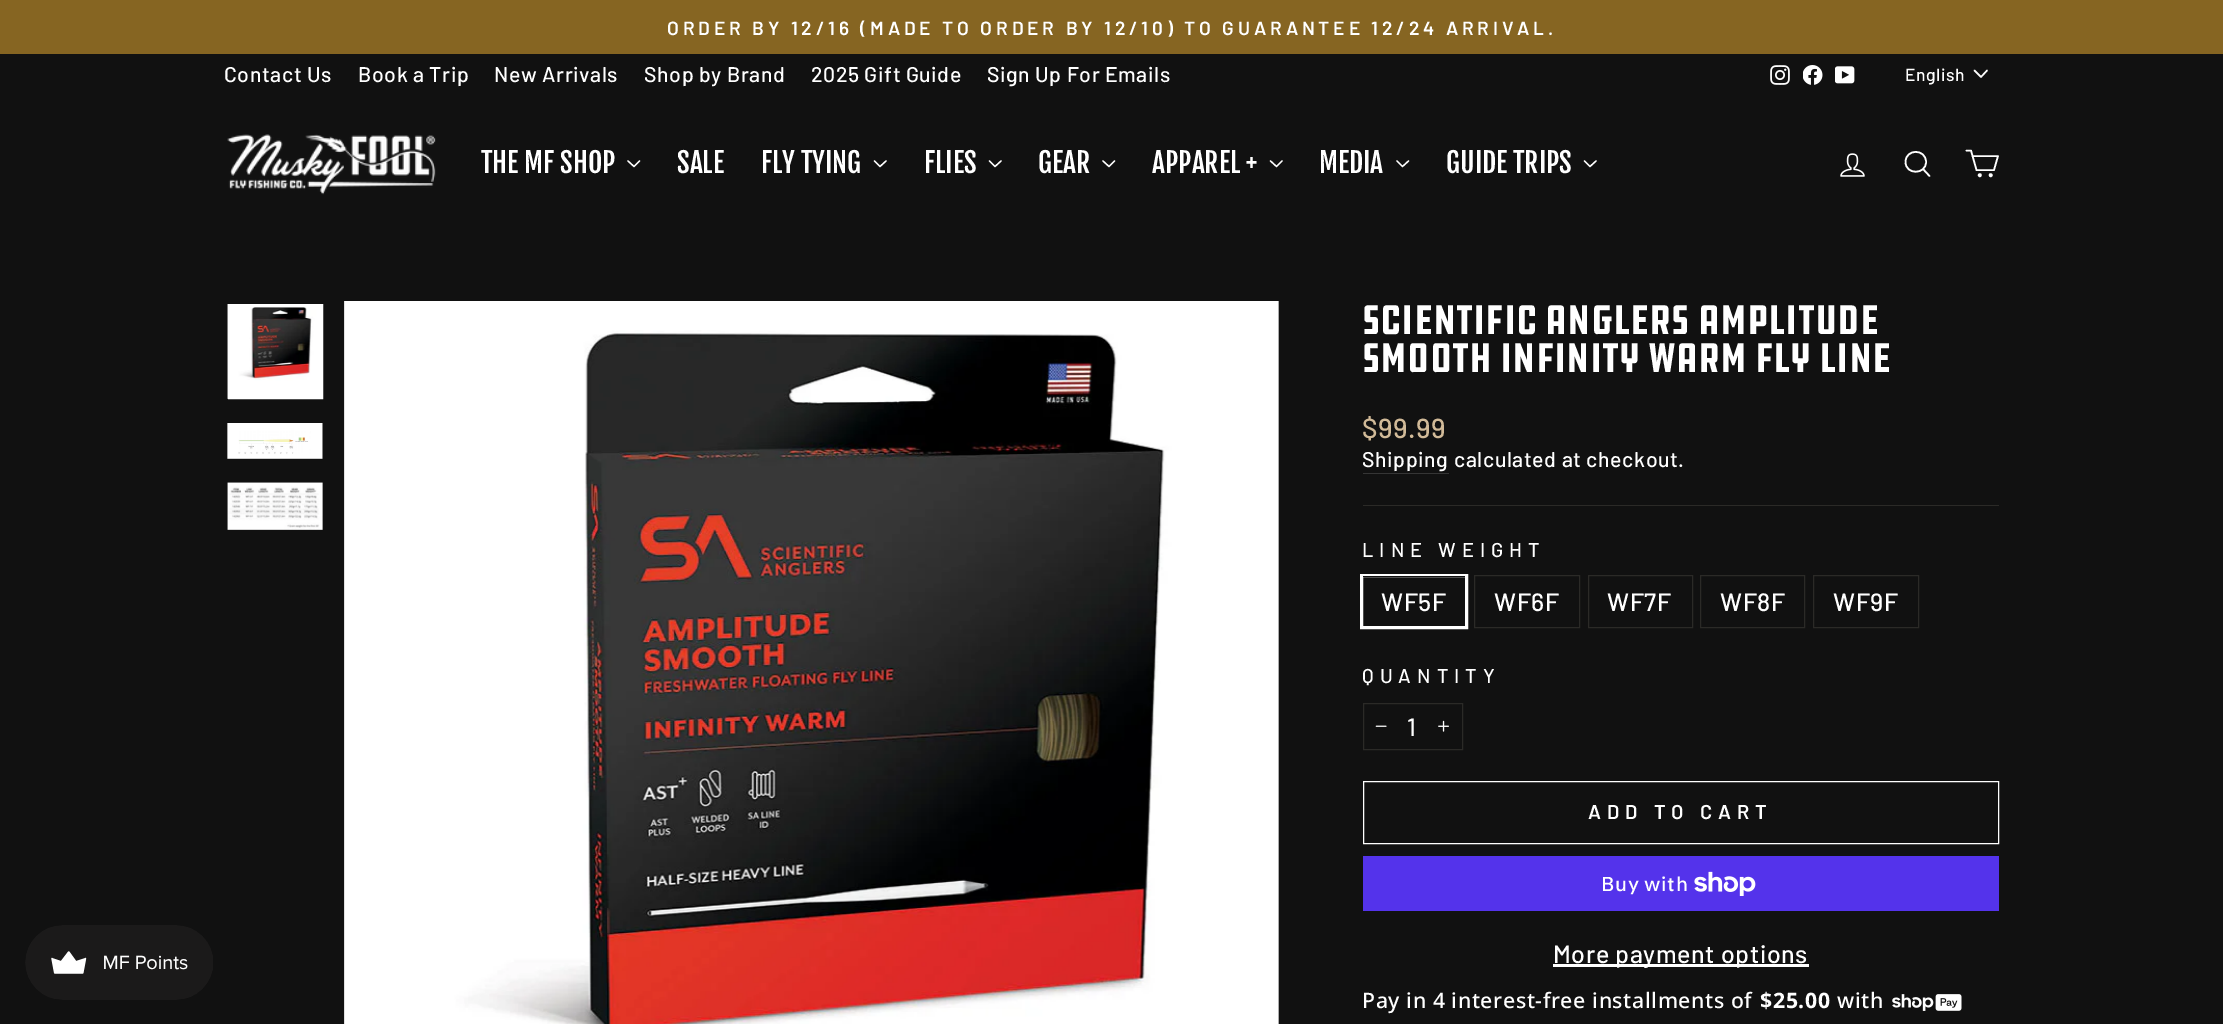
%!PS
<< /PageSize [2223 1024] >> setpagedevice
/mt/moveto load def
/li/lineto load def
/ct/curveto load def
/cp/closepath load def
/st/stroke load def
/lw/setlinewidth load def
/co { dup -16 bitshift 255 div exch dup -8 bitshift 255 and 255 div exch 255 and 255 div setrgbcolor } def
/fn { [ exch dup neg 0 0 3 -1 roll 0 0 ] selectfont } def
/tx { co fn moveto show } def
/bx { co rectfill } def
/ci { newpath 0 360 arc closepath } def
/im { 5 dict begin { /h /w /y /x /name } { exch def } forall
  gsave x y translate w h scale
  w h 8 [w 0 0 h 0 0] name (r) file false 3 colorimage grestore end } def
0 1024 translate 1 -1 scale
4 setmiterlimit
0 0 2223 1024 16#111111 bx
(media/1.raw) 25 925 188 75 im
0 0 2223 54 16#866522 bx
(media/2.raw) 1770 65 20 20 im
(media/3.raw) 1803 65 20 20 im
(media/4.raw) 1835 66 20 18 im
16#FFFFFF co
1.5 lw
1 setlinecap
1 setlinejoin
1974.5 70.5 mt 1981 77 li 1987 70.5 li st
(media/5.raw) 227 134 209 61 im
1.3 lw
628 161 mt 634 166.5 li 639.5 161 li st
874.5 161 mt 880 166.5 li 886 161 li st
989.5 161 mt 995 166.5 li 1001 161 li st
1103 161 mt 1109 166.5 li 1114.5 161 li st
1270.5 161 mt 1276.5 166.5 li 1282 161 li st
1397 161 mt 1402.5 166.5 li 1408.5 161 li st
1584.5 161 mt 1590 166.5 li 1596 161 li st
(media/6.raw) 1840 153 25 24 im
1.6 lw
1926 162 mt 1926 175 1905.5 175 1905.5 162 ct 1905.5 148.5 1926 148.5 1926 162 ct cp 1929.5 176 mt 1923 169 li st
1972.5 156 mt 1998 156 li 1994 170 li 1976.5 170 li 1971 150.5 li 1966.5 150.5 li st
0 setlinecap
0 setlinejoin
1979.8 175.2 1.1 ci st
1990.7 175.2 1.1 ci st
(media/7.raw) 227 304 93 95 im
3 lw
229.5 305.5 92 92 rectstroke
(media/8.raw) 227 423 96 36 im
(media/9.raw) 227 482 96 48 im
(media/10.raw) 344 301 935 723 im
1363 473 86 1 16#353535 bx
1363 505 636 1 16#2B2A27 bx
16#FFFFFF co
1361.5 575.5 105 52 rectstroke
1363 576 102 1 16#111111 bx
16#2B2A27 co
1 lw
1474.5 575.5 105 52 rectstroke
1588.5 575.5 104 52 rectstroke
1700.5 575.5 104 52 rectstroke
1813.5 575.5 105 52 rectstroke
1363.5 703.5 99 46 rectstroke
(media/11.raw) 1375 725 12 2 im
(media/12.raw) 1438 720 11 12 im
16#FFFFFF co
1363.5 781.5 635 62 rectstroke
1363 856 636 55 16#5433EB bx
(media/13.raw) 1694 871 62 25 im
1553 964 256 3 16#FFFFFF bx
(media/14.raw) 1892 994 70 17 im
/Barlow-SemiBold 19.1 fn
667 35 mt 3.83 0 (ORDER BY 12/16 \(MADE TO ORDER BY 12/10\) TO GUARANTEE 12/24 ARRIVAL.) ashow
/Barlow-Medium 21.25 fn
224 82 mt .6 0 (Contact Us) ashow
358 82 mt .6 0 (Book a Trip) ashow
494 82 mt .6 0 (New Arrivals) ashow
644 82 mt .6 0 (Shop by Brand) ashow
811 82 mt .6 0 (2025 Gift Guide) ashow
987 82 mt .6 0 (Sign Up For Emails) ashow
/Barlow-Medium 17.5 fn
1905 81 mt .5 0 (English) ashow
(THE MF SHOP) 481 173 /FjallaOne-Regular 27.5 16#FFFFFF tx
(SALE) 677 173 /FjallaOne-Regular 27.5 16#FFFFFF tx
(FLY TYING) 761 173 /FjallaOne-Regular 27.5 16#FFFFFF tx
(FLIES) 924 173 /FjallaOne-Regular 27.5 16#FFFFFF tx
(GEAR) 1038 173 /FjallaOne-Regular 27.5 16#FFFFFF tx
(APPAREL +) 1152 173 /FjallaOne-Regular 27.5 16#FFFFFF tx
(MEDIA) 1319 173 /FjallaOne-Regular 27.5 16#FFFFFF tx
(GUIDE TRIPS) 1446 173 /FjallaOne-Regular 27.5 16#FFFFFF tx
(SCIENTIFIC ANGLERS AMPLITUDE) 1362 334 /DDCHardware-Regular 42.5 16#FFFFFF tx
(SMOOTH INFINITY WARM FLY LINE) 1362 372 /DDCHardware-Regular 42.5 16#FFFFFF tx
/Barlow-Medium 27.5 fn
16#D1BA98 co
1362 438 mt .6 0 ($99.99) ashow
/Barlow-Medium 21.25 fn
16#FFFFFF co
1362 467 mt .6 0 (Shipping) ashow
1454 467 mt .6 0 (calculated at checkout.) ashow
/Barlow-Medium 20 fn
1362 557 mt 6 0 (LINE WEIGHT) ashow
/Barlow-Medium 25 fn
1381 611 mt .6 0 (WF5F) ashow
1494 611 mt .6 0 (WF6F) ashow
1607 611 mt .6 0 (WF7F) ashow
1720 611 mt .6 0 (WF8F) ashow
1833 611 mt .6 0 (WF9F) ashow
/Barlow-Medium 20 fn
1362 683 mt 6 0 (QUANTITY) ashow
/Barlow-Medium 25 fn
1407 736 mt .6 0 (1) ashow
/Barlow-SemiBold 20 fn
1588 819 mt 6 0 (ADD TO CART) ashow
/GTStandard-Medium 20 fn
1601 891 mt .6 0 (Buy with) ashow
/Barlow-Medium 25 fn
1553 963 mt .6 0 (More payment options) ashow
/NotoSans-Medium 21.25 fn
1362 1008 mt .6 0 (Pay in 4 interest-free installments of) ashow
/NotoSans-Bold 21.25 fn
1760 1008 mt .6 0 ($25.00) ashow
/NotoSans-Medium 21.25 fn
1837 1008 mt .6 0 (with) ashow
showpage
